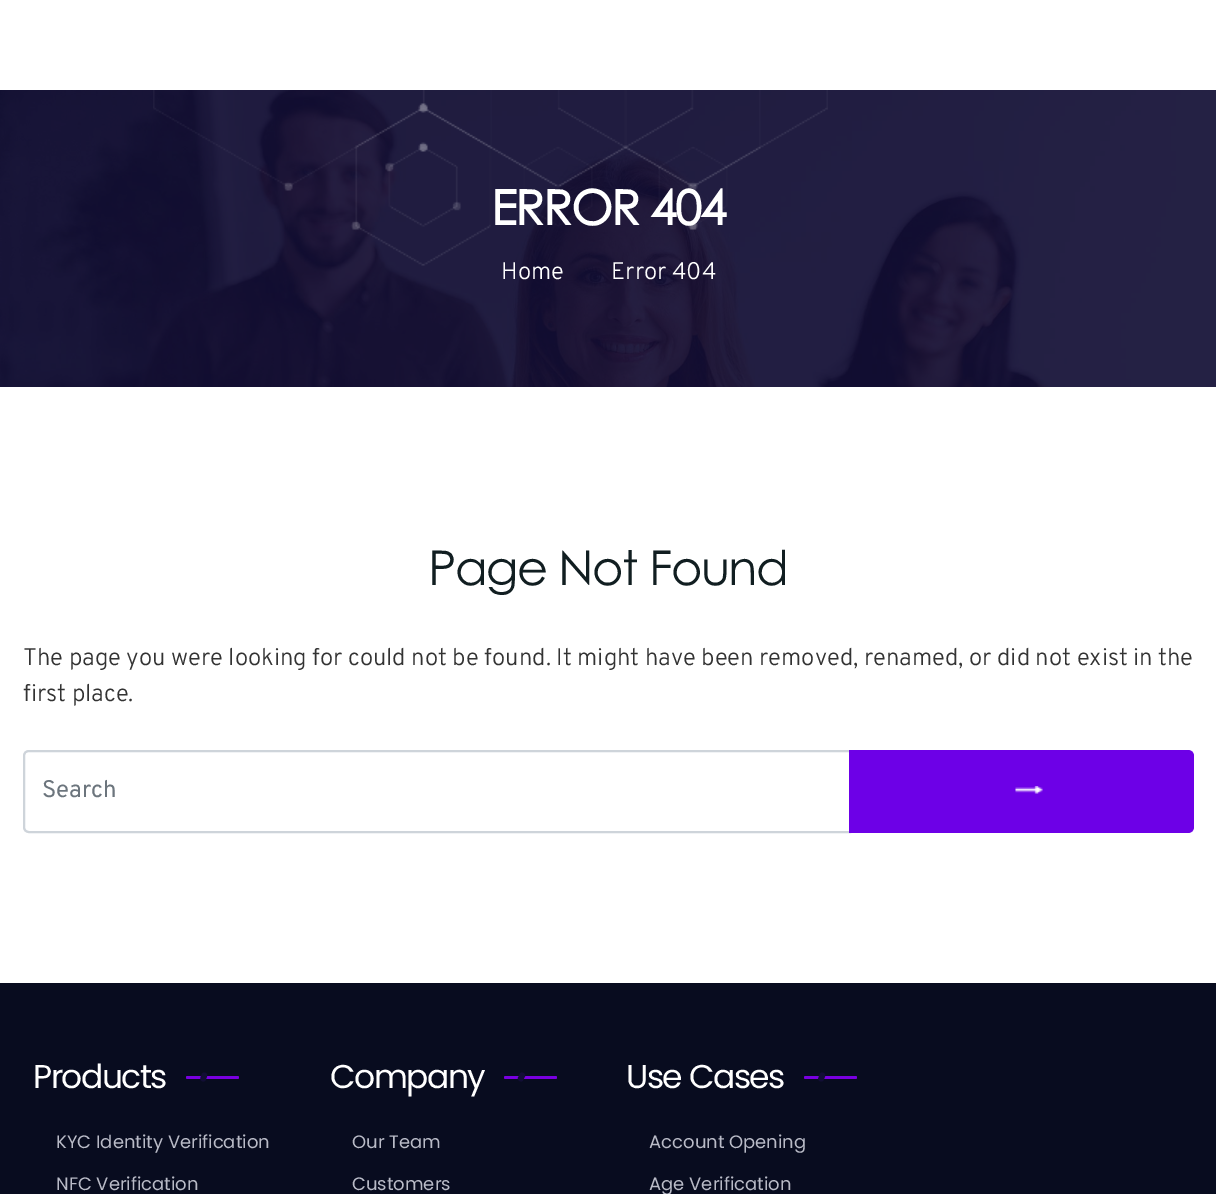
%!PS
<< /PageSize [1216 1194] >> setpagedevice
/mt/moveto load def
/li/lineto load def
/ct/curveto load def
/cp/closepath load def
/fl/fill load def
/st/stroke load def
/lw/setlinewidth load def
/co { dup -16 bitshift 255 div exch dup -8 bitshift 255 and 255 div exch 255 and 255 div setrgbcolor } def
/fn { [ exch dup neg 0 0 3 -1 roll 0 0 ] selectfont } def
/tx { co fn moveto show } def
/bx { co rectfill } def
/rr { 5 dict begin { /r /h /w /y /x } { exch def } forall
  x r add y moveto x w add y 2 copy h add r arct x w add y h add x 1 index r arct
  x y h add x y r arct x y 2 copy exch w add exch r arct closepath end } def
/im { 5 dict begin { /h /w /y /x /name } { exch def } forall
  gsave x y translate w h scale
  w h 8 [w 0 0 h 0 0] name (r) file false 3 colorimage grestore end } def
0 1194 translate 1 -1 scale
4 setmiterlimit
0 0 1216 1194 16#FFFFFF bx
(media/1.raw) 0 90 1216 297 im
(media/2.raw) 153 90 675 176 im
16#CED4DA co
2 lw
29 751 mt 850 751 li 850 832 li 29 832 li 26 832 24 830 24 827 ct 24 756 li 24 753 26 751 29 751 ct cp st
16#6D00E7 co
849 750 mt 1188 750 li 1191.5 750 1194 752.5 1194 756 ct 1194 827 li 1194 830.5 1191.5 833 1188 833 ct 849 833 li cp fl
(media/3.raw) 1015 786 28 8 im
0 983 1216 211 16#080C1F bx
16#7900E0 co
186 1076 53 3 1.5 rr fl
16#120E35 co
200.5 1077.5 mt 202 1073.5 li 204.5 1071 208 1073.5 207 1076.5 ct 205.5 1080.5 li 203 1083 199.5 1080.5 200.5 1077.5 ct cp fl
16#7900E0 co
504 1076 53 3 1.5 rr fl
16#120E35 co
518 1077.5 mt 520 1073.5 li 522 1071 526 1073.5 525 1076.5 ct 523 1080.5 li 521 1083 517 1080.5 518 1077.5 ct cp fl
16#7900E0 co
804 1076 53 3 1.5 rr fl
16#120E35 co
818.5 1077.5 mt 820 1073.5 li 822.5 1071 826 1073.5 825 1076.5 ct 823.5 1080.5 li 821 1083 817 1080.5 818.5 1077.5 ct cp fl
/CenturyGothic-Bold 48 fn
16#FFFFFF co
491 225 mt -1.5 0 (ERROR 404) ashow
(Home) 501 279 /Overpass-Light 24 16#FFFFFF tx
(Error 404) 611 279 /Overpass-Light 24 16#FFFFFF tx
/CenturyGothic-Regular 48 fn
16#111E21 co
428 585 mt -1.5 0 (Page Not Found) ashow
(The page you were looking for could not be found. It might have been removed, renamed, or did not exist in the) 23 665 /Overpass-Light 24 16#333333 tx
(first place.) 23 701 /Overpass-Light 24 16#333333 tx
(Search) 42 797 /Overpass-Regular 24 16#6C757D tx
/Poppins-Regular 33 fn
16#FFFFFF co
33 1088 mt -1.5 0 (Products) ashow
(KYC Identity Verification) 56 1148 /Poppins-Regular 18 16#B9BBC7 tx
(NFC Verification) 56 1190 /Poppins-Regular 18 16#B9BBC7 tx
/Poppins-Regular 33 fn
16#FFFFFF co
330 1088 mt -1.5 0 (Company) ashow
(Our Team) 352 1148 /Poppins-Regular 18 16#B9BBC7 tx
(Customers) 352 1190 /Poppins-Regular 18 16#B9BBC7 tx
/Poppins-Regular 33 fn
16#FFFFFF co
626 1088 mt -1.5 0 (Use Cases) ashow
(Account Opening) 649 1148 /Poppins-Regular 18 16#B9BBC7 tx
(Age Verification) 649 1190 /Poppins-Regular 18 16#B9BBC7 tx
showpage
